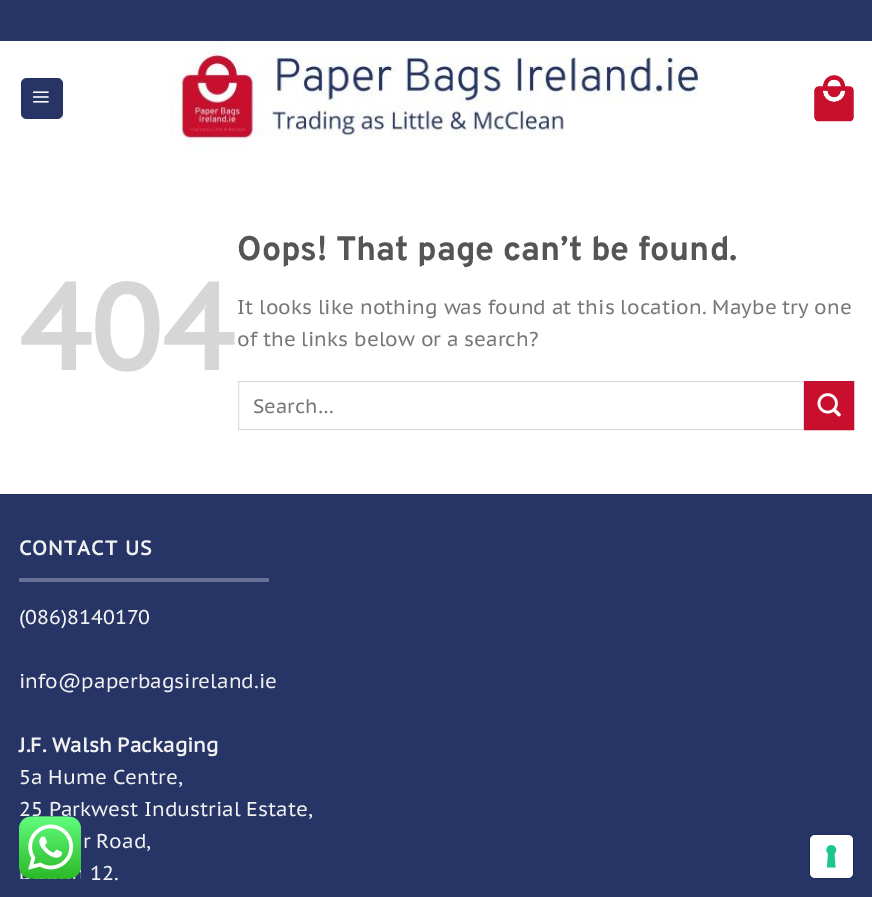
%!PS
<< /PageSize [872 897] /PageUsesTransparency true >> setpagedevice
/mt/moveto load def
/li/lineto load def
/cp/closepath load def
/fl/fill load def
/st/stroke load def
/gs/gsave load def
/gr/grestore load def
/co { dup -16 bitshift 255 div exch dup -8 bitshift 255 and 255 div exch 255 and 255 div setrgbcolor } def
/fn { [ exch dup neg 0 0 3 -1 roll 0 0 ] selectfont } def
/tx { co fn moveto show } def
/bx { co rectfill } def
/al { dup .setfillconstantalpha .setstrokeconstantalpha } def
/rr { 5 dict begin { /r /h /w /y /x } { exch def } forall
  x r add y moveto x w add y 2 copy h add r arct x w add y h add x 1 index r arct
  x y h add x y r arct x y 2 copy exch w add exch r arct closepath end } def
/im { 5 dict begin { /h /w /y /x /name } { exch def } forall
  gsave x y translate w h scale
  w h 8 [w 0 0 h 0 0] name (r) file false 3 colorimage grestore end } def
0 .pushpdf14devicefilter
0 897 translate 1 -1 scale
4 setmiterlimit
0 0 872 897 16#FFFFFF bx
0 0 872 41 16#263466 bx
21 78 42 41 6 rr fl
0.05 al
16#000000 co
21.5 78.5 41 40 rectstroke
1 al
(media/1.raw) 32 91 17 12 im
(media/2.raw) 169 41 535 107 im
(media/3.raw) 814 75 40 47 im
16#DDDDDD co
238.5 381.5 565 48 rectstroke
16#C8102E co
804.5 381.5 mt 853.5 381.5 li 853.5 429.5 li 804.5 429.5 li cp gs fl gr
16#BE0F2C co
st
(media/4.raw) 817 393 24 24 im
0 495 872 402 16#263466 bx
0 494 872 1 16#243161 bx
19 578 250 4 16#677194 bx
16#202C57 co
809.5 834.5 44 44 5.5 rr st
16#FFFFFF co
810 835 43 43 5 rr fl
(media/6.raw) 826 845 11 23 im
(404) 19 370 /PTSansCaption-Bold 120 16#D6D6D6 tx
(Oops! That page can’t be found.) 237 260 /Overpass-Bold 34 16#555555 tx
(It looks like nothing was found at this location. Maybe try one) 237 314 /PTSansCaption-Regular 20 16#777777 tx
(of the links below or a search?) 237 346 /PTSansCaption-Regular 20 16#777777 tx
(Search…) 253 413 /PTSansCaption-Regular 19.5 16#777777 tx
/PTSansCaption-Bold 20 fn
16#F1F1F1 co
19 555 mt 1 0 (CONTACT US) ashow
(\(086\)8140170) 19 624 /PTSansCaption-Regular 20 16#F1F1F1 tx
(info@paperbagsireland.ie) 19 688 /PTSansCaption-Regular 20 16#F1F1F1 tx
(J.F. Walsh Packaging) 19 752 /PTSansCaption-Bold 20 16#F1F1F1 tx
(5a Hume Centre,) 19 784 /PTSansCaption-Regular 20 16#F1F1F1 tx
(25 Parkwest Industrial Estate,) 19 816 /PTSansCaption-Regular 20 16#F1F1F1 tx
(r Road,) 83 848 /PTSansCaption-Regular 20 16#F1F1F1 tx
(12.) 90 880 /PTSansCaption-Regular 20 16#F1F1F1 tx
(media/5.raw) 19 816 62 63 im
.poppdf14devicefilter showpage
